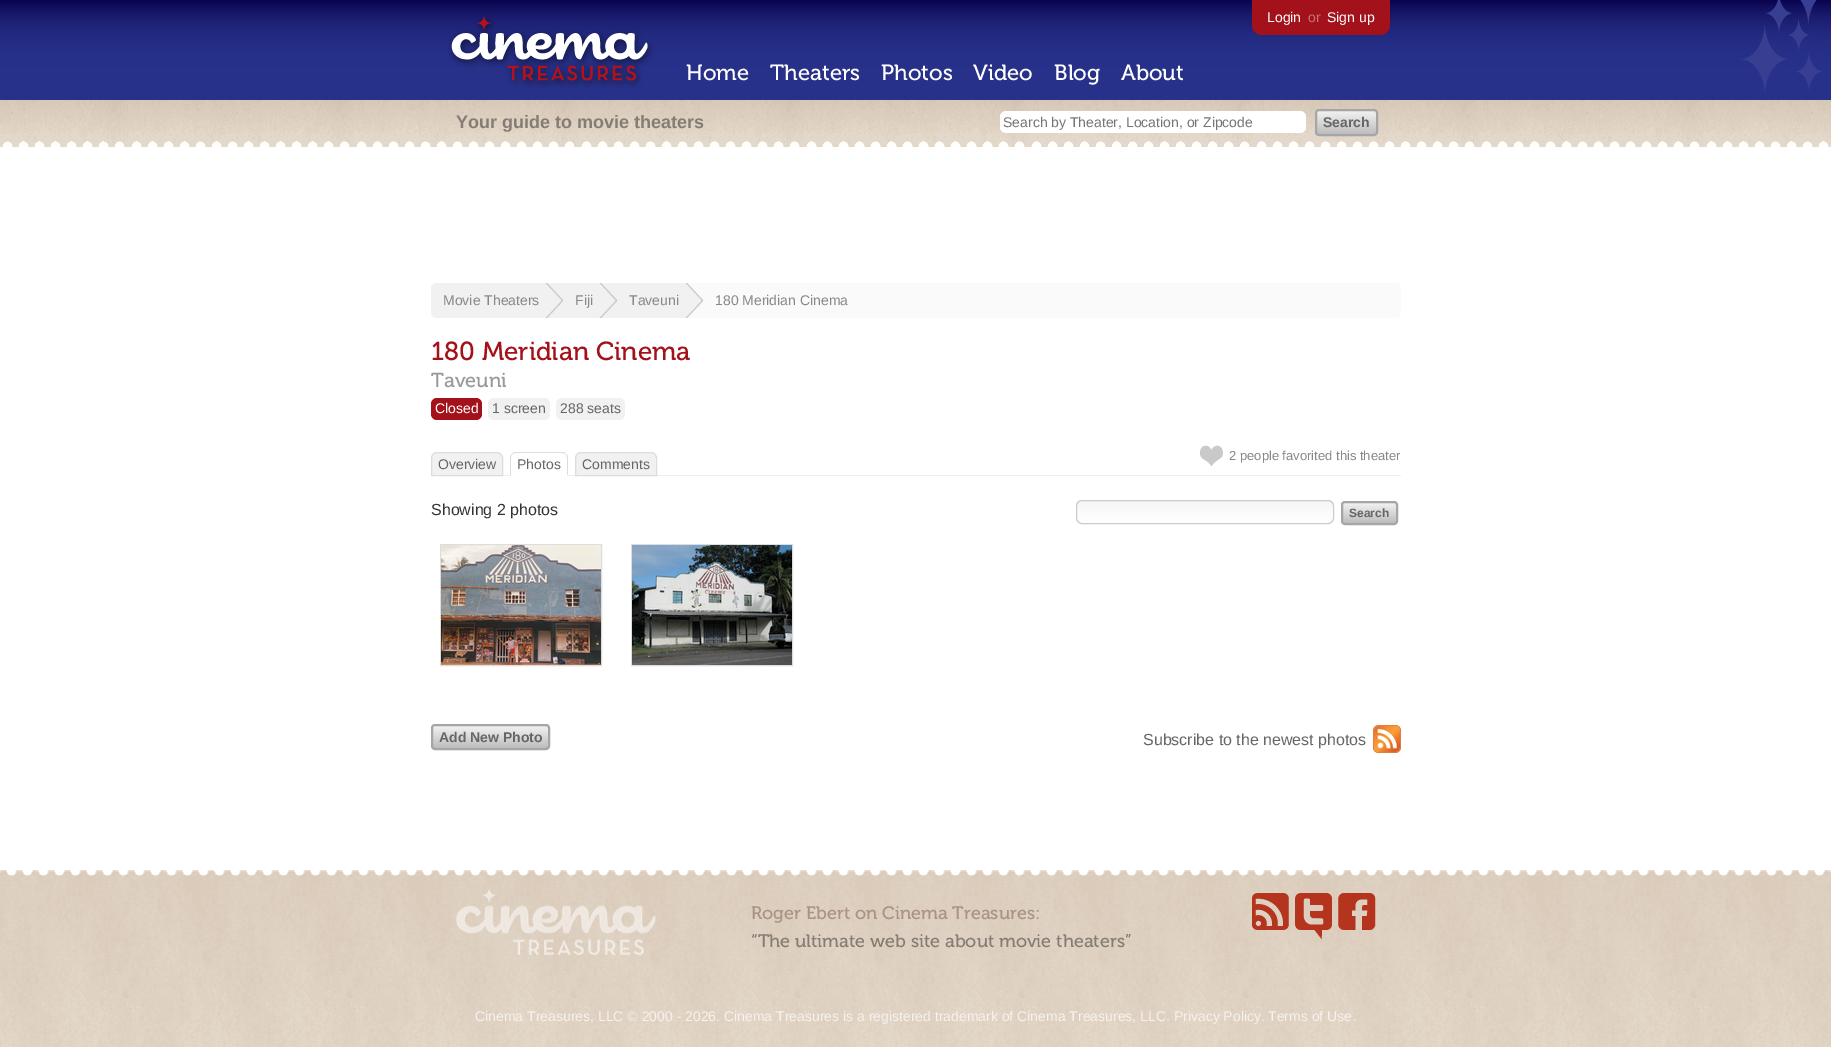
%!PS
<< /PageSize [1831 1047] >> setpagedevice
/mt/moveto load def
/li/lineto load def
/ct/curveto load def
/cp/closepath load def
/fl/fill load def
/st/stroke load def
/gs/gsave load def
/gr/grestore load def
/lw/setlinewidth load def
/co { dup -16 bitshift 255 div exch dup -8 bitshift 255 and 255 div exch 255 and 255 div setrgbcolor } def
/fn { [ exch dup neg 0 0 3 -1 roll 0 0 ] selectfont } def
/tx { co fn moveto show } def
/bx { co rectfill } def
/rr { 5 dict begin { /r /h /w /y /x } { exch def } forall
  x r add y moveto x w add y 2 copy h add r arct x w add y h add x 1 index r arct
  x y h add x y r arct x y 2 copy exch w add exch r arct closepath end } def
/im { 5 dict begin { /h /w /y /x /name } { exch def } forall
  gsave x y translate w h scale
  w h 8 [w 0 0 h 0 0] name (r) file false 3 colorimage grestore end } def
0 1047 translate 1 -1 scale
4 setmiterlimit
0 0 1831 1047 16#FFFFFF bx
(media/1.raw) 0 0 1831 100 im
(media/2.raw) 448 15 206 73 im
16#A3121B co
1252 0 mt 1390 0 li 1390 25 li 1390 30.5 1385.5 35 1380 35 ct 1262 35 li 1256.5 35 1252 30.5 1252 25 ct cp fl
(media/3.raw) 1741 0 81 93 im
(media/4.raw) 0 100 1831 48 im
16#FFFFFF co
1000 111 306 22 6 rr fl
gs 1317 111 59 23 2 rr clip newpath
<< /ShadingType 2 /ColorSpace /DeviceRGB /Coords [1347 111 1347 134] /Extend [true true] /Function << /FunctionType 2 /Domain [0 1] /C0 [.949 .949 .949] /C1 [.741 .741 .741] /N 1 >> >> shfill gr
16#A6A6A6 co
2 lw
1316 110 61 25 3 rr st
16#FAFAFA co
431 283 970 35 6 rr fl
16#F1F1F1 co
437 283 mt 563 283 li 563 318 li 437 318 li 433.5 318 431 315.5 431 312 ct 431 289 li 431 285.5 433.5 283 437 283 ct cp fl
(media/5.raw) 545 283 18 35 im
563 283 140 35 16#F1F1F1 bx
(media/5.raw) 599 283 18 35 im
(media/6.raw) 685 283 18 35 im
16#A3121B co
431 398 51 22 6 rr fl
16#F1F1F1 co
488 398 62 22 6 rr fl
556 398 69 22 6 rr fl
503 475 898 1 16#EEEEEE bx
16#F1F1F1 co
437 452.5 mt 497 452.5 li 500 452.5 502.5 455 502.5 458 ct 502.5 475.5 li 431.5 475.5 li 431.5 458 li 431.5 455 434 452.5 437 452.5 ct cp gs fl gr
16#DDDDDD co
1 lw
st
16#FFFFFF co
516 452 mt 562 452 li 565.5 452 568 454.5 568 458 ct 568 476 li 510 476 li 510 458 li 510 454.5 512.5 452 516 452 ct cp fl
16#DDDDDD co
516 452 mt 514 452 513 453 512 454 ct 513 454 514 453 516 453 ct 562 453 li 564 453 565 454 566 454 ct 565 453 564 452 562 452 ct cp 568 476 mt 568 458 li 568 456.5 567 455 566 454 ct 565.5 454.5 li 566.5 455 567 456.5 567 458 ct 567 475 li cp fl
16#FFFFFF co
568 476 mt 567 475 li 511 475 li 510 476 li cp fl
16#DDDDDD co
510 476 mt 511 475 li 511 458 li 511 456.5 511.5 455 512.5 454.5 ct 512 454 li 511 455 510 456.5 510 458 ct cp fl
16#F1F1F1 co
581 452.5 mt 651 452.5 li 654 452.5 656.5 455 656.5 458 ct 656.5 475.5 li 575.5 475.5 li 575.5 458 li 575.5 455 578 452.5 581 452.5 ct cp gs fl gr
16#DDDDDD co
st
(media/7.raw) 1200 445 23 22 im
gs
1076 500 258 24 6 rr clip newpath
gs 1076 501 mt 1334 501 li 1334 523 li 1076 523 li cp clip newpath
<< /ShadingType 2 /ColorSpace /DeviceRGB /Coords [1205 501 1205 523] /Extend [true true] /Function << /FunctionType 2 /Domain [0 1] /C0 [.965 .965 .965] /C1 [1 1 1] /N 1 >> >> shfill gr
gr
16#CCCCCC co
1076.5 500.5 257 23 5.5 rr st
gs 1343 503 53 20 2 rr clip newpath
<< /ShadingType 2 /ColorSpace /DeviceRGB /Coords [1370 503 1370 523] /Extend [true true] /Function << /FunctionType 2 /Domain [0 1] /C0 [.949 .949 .949] /C1 [.741 .741 .741] /N 1 >> >> shfill gr
16#A6A6A6 co
2 lw
1342 502 55 22 3 rr st
16#DDDDDD co
1 lw
440.5 544.5 161 121 rectstroke
(media/8.raw) 441 545 160 120 im
631.5 544.5 161 121 rectstroke
(media/9.raw) 632 545 160 120 im
gs 433 726 115 22 2 rr clip newpath
<< /ShadingType 2 /ColorSpace /DeviceRGB /Coords [491 726 491 748] /Extend [true true] /Function << /FunctionType 2 /Domain [0 1] /C0 [.949 .949 .949] /C1 [.741 .741 .741] /N 1 >> >> shfill gr
16#A6A6A6 co
2 lw
432 725 117 24 3 rr st
(media/10.raw) 1373 725 28 28 im
(media/11.raw) 0 870 1831 177 im
(media/12.raw) 456 887 200 68 im
(media/13.raw) 1252 893 37 37 im
(media/14.raw) 1295 893 37 46 im
(media/15.raw) 1338 893 38 37 im
(Home) 686 80 /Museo-Regular 22 16#FFFFFF tx
(Theaters) 770 80 /Museo-Regular 22 16#FFFFFF tx
(Photos) 881 80 /Museo-Regular 22 16#FFFFFF tx
(Video) 973 80 /Museo-Regular 22 16#FFFFFF tx
(Blog) 1054 80 /Museo-Regular 22 16#FFFFFF tx
(About) 1121 80 /Museo-Regular 22 16#FFFFFF tx
(Login) 1267 22 /LiberationSans-Regular 14 16#FFFFFF tx
(or) 1308 22 /LiberationSans-Regular 14 16#C87176 tx
(Sign up) 1327 22 /LiberationSans-Regular 14 16#FFFFFF tx
(Your guide to movie theaters) 456 128 /LiberationSans-Bold 18 16#857D74 tx
(Search by Theater, Location, or Zipcode) 1003 127 /LiberationSans-Regular 14 16#757575 tx
(Search) 1323 127 /LiberationSans-Bold 14 16#666666 tx
(Movie Theaters) 443 305 /LiberationSans-Regular 14 16#888888 tx
(Fiji) 575 305 /LiberationSans-Regular 14 16#888888 tx
(Taveuni) 629 305 /LiberationSans-Regular 14 16#888888 tx
(180 Meridian Cinema) 715 305 /LiberationSans-Regular 14 16#888888 tx
(180 Meridian Cinema) 431 360 /Museo-Regular 26 16#A3121B tx
gs
431 172 970 780 rectclip
(Taveuni) 431 387 /Museo-Regular 20 16#999999 tx
gr
(Closed) 435 413 /LiberationSans-Regular 14 16#FFFFFF tx
(1 screen) 492 413 /LiberationSans-Regular 14 16#666666 tx
(288 seats) 560 413 /LiberationSans-Regular 14 16#666666 tx
(Overview) 438 469 /LiberationSans-Regular 14 16#666666 tx
(Photos) 517 469 /LiberationSans-Regular 14 16#666666 tx
(Comments) 582 469 /LiberationSans-Regular 14 16#666666 tx
(2 people favorited this theater) 1229 460 /LiberationSans-Regular 13 16#888888 tx
(Showing 2 photos) 431 515 /LiberationSans-Regular 16 16#333333 tx
(Search) 1349 517 /LiberationSans-Bold 12 16#666666 tx
(Add New Photo) 439 742 /LiberationSans-Bold 14 16#666666 tx
(Subscribe to the newest photos) 1143 745 /LiberationSans-Regular 16 16#666666 tx
(Roger Ebert on Cinema Treasures:) 751 919 /Museo-Regular 18 16#A99382 tx
(“The ultimate web site about movie theaters”) 751 947 /Museo-Regular 18 16#857D74 tx
(Cinema Treasures, LLC © 2000 -) 475 1021 /LiberationSans-Regular 14 16#F6F2ED tx
(2026.) 685 1021 /LiberationSans-Regular 14 16#F6F2ED tx
(Cinema Treasures is a registered trademark of Cinema Treasures, LLC. Privacy Policy) 724 1021 /LiberationSans-Regular 14 16#F6F2ED tx
(.) 1261 1021 /LiberationSans-Regular 14 16#F6F2ED tx
(Terms of Use) 1268 1021 /LiberationSans-Regular 14 16#F6F2ED tx
(.) 1353 1021 /LiberationSans-Regular 14 16#F6F2ED tx
showpage
